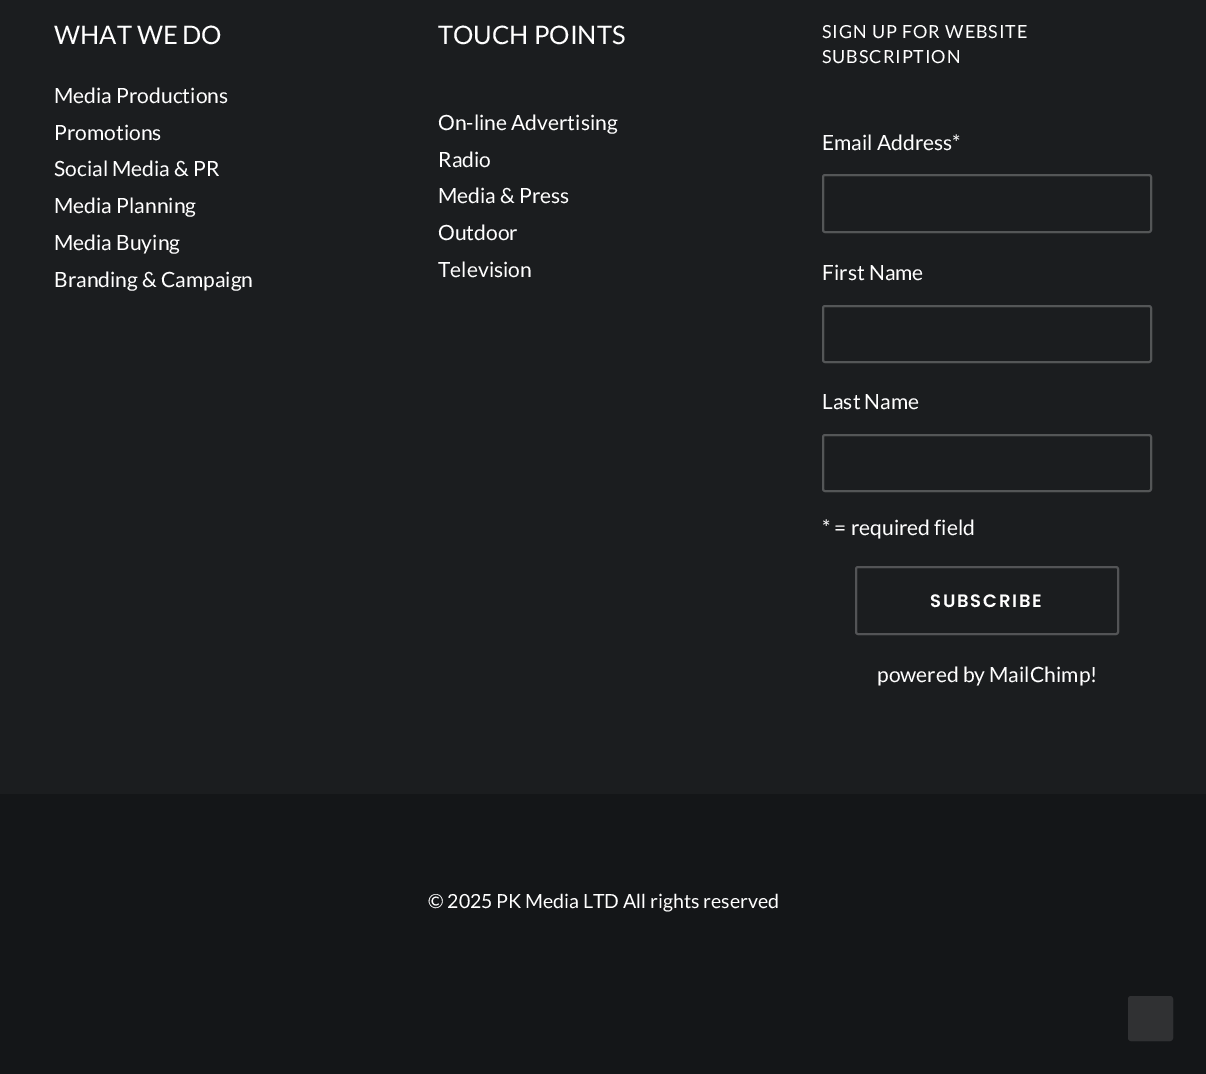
%!PS
<< /PageSize [1206 1074] >> setpagedevice
/mt/moveto load def
/fl/fill load def
/st/stroke load def
/gs/gsave load def
/gr/grestore load def
/lw/setlinewidth load def
/co { dup -16 bitshift 255 div exch dup -8 bitshift 255 and 255 div exch 255 and 255 div setrgbcolor } def
/fn { [ exch dup neg 0 0 3 -1 roll 0 0 ] selectfont } def
/tx { co fn moveto show } def
/bx { co rectfill } def
/rr { 5 dict begin { /r /h /w /y /x } { exch def } forall
  x r add y moveto x w add y 2 copy h add r arct x w add y h add x 1 index r arct
  x y h add x y r arct x y 2 copy exch w add exch r arct closepath end } def
0 1074 translate 1 -1 scale
4 setmiterlimit
0 0 1206 1074 16#141618 bx
0 0 1206 794 16#1B1D1F bx
16#545657 co
2 lw
823 175 328 57 2 rr st
823 306 328 56 2 rr st
823 435 328 56 2 rr st
16#535456 co
856 567 262 67 2 rr st
16#303133 co
1129 997 43 43 2 rr gs fl gr
st
(WHAT WE DO) 54 44 /Lato-Regular 25.5 16#FFFFFF tx
(Media Productions) 54 103 /Lato-Regular 21 16#FFFFFF tx
(Promotions) 54 140 /Lato-Regular 21 16#FFFFFF tx
(Social Media & PR) 54 176 /Lato-Regular 21 16#FFFFFF tx
(Media Planning) 54 213 /Lato-Regular 21 16#FFFFFF tx
(Media Buying) 54 250 /Lato-Regular 21 16#FFFFFF tx
(Branding & Campaign) 54 287 /Lato-Regular 21 16#FFFFFF tx
(TOUCH POINTS) 438 44 /Lato-Regular 25.5 16#FFFFFF tx
(On-line Advertising) 438 130 /Lato-Regular 21 16#FFFFFF tx
(Radio) 438 167 /Lato-Regular 21 16#FFFFFF tx
(Media & Press) 438 203 /Lato-Regular 21 16#FFFFFF tx
(Outdoor) 438 240 /Lato-Regular 21 16#FFFFFF tx
(Television) 438 277 /Lato-Regular 21 16#FFFFFF tx
/Lato-Regular 18 fn
822 38 mt .9 0 (SIGN UP FOR WEBSITE) ashow
822 63 mt .9 0 (SUBSCRIPTION) ashow
(Email Address*) 822 150 /Lato-Regular 21 16#FFFFFF tx
(First Name) 822 280 /Lato-Regular 21 16#FFFFFF tx
(Last Name) 822 409 /Lato-Regular 21 16#FFFFFF tx
(* = required field) 822 535 /Lato-Regular 21 16#FFFFFF tx
/Poppins-SemiBold 18 fn
930 607 mt 1.75 0 (SUBSCRIBE) ashow
(powered by MailChimp!) 877 682 /Lato-Regular 21 16#FFFFFF tx
(© 2025 PK Media LTD All rights reserved) 428 908 /Lato-Regular 19.5 16#FFFFFF tx
showpage
